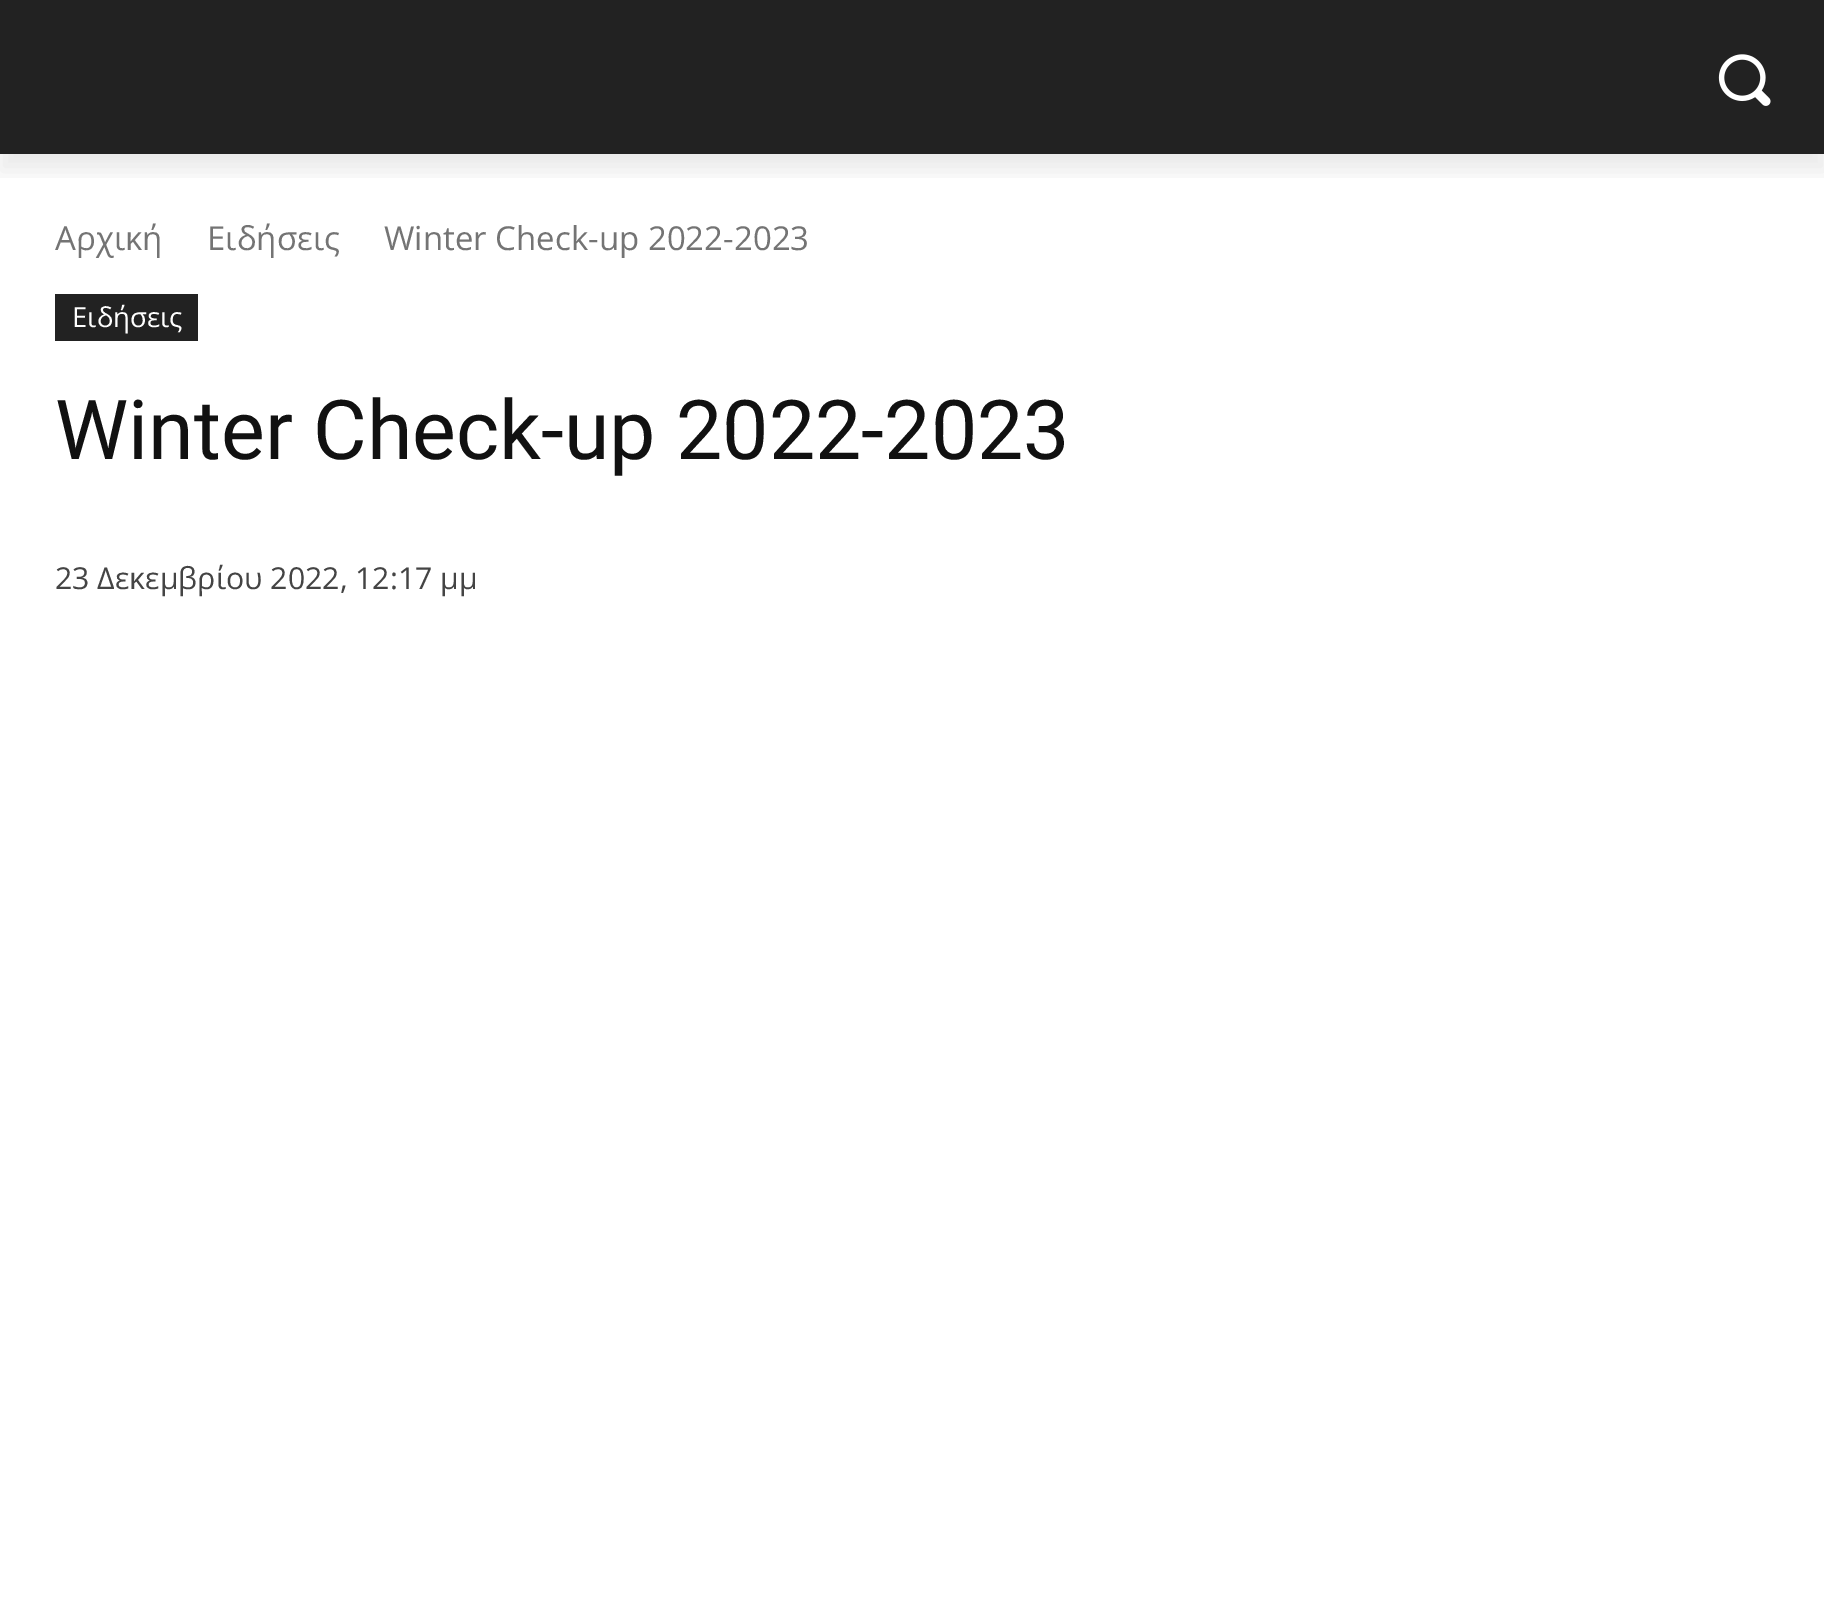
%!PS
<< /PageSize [1824 1605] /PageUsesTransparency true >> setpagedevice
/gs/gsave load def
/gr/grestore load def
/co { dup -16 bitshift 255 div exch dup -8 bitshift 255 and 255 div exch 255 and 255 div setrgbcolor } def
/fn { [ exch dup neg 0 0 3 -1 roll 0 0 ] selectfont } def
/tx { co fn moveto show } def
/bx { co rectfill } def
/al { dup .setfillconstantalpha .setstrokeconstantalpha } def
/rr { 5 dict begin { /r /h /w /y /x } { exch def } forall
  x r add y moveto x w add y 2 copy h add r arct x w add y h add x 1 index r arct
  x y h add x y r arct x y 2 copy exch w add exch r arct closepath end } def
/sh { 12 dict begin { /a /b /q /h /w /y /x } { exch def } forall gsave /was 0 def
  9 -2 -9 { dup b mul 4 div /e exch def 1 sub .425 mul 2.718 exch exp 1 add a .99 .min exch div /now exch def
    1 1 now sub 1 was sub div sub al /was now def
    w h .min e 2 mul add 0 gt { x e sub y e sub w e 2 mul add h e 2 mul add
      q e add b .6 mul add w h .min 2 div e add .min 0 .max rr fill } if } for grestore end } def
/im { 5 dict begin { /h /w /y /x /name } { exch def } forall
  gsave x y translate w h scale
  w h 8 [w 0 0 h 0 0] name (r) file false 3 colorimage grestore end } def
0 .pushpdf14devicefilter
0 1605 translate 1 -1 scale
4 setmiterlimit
0 0 1824 1605 16#FFFFFF bx
0 0 1824 154 16#222222 bx
(media/1.raw) 1718 54 53 52 im
gs
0 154 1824 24 rectclip
16#000000 co
0 17 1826 154 0 11 .08 sh
gr
55 294 143 47 16#222222 bx
(Αρχική) 55 250 /OpenSans-Regular 33 16#747474 tx
(Ειδήσεις) 207 250 /OpenSans-Regular 33 16#747474 tx
(Winter Check-up 2022-2023) 384 250 /OpenSans-Regular 33 16#747474 tx
(Ειδήσεις) 72 327 /OpenSans-Regular 27.5 16#FFFFFF tx
(Winter Check-up 2022-2023) 55 459 /Roboto-Regular 82.5 16#111111 tx
(23 Δεκεμβρίου 2022, 12:17 μμ) 55 589 /OpenSans-Regular 30.25 16#444444 tx
.poppdf14devicefilter showpage
